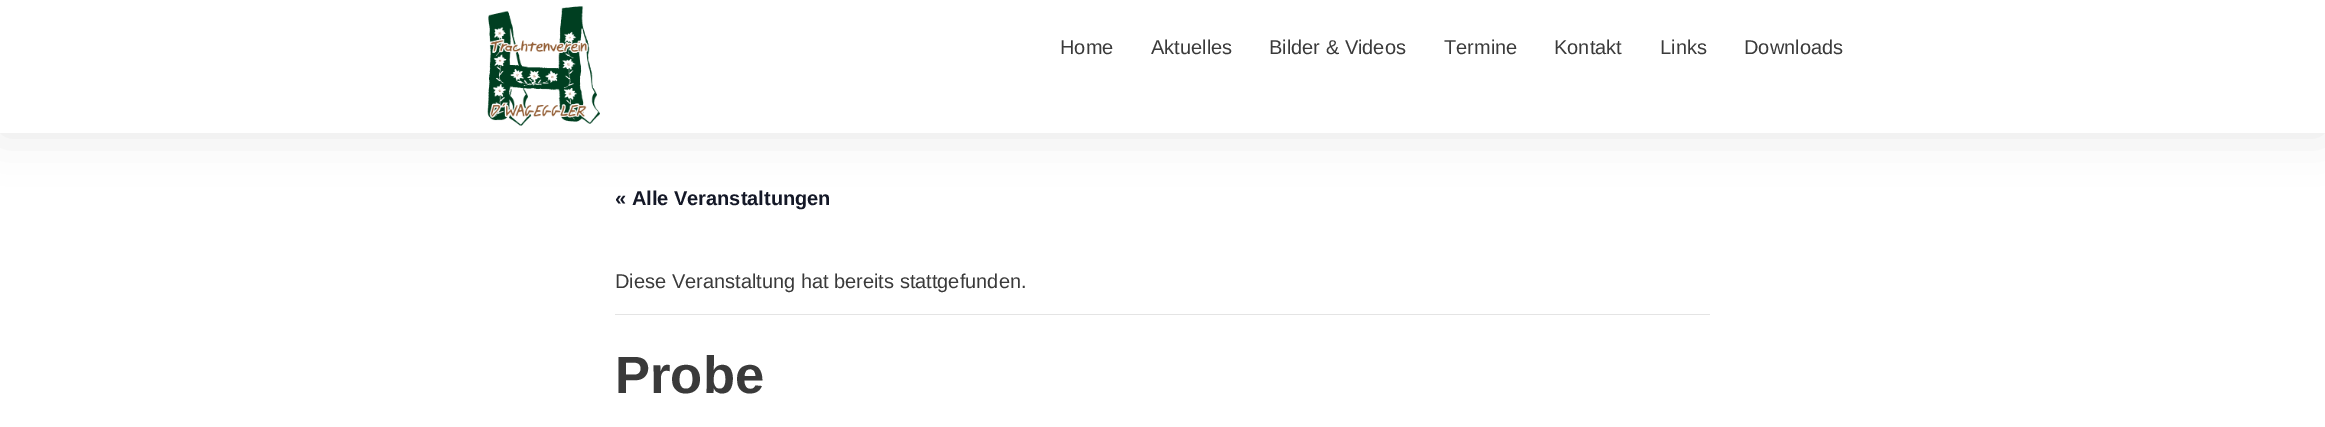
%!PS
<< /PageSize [2325 427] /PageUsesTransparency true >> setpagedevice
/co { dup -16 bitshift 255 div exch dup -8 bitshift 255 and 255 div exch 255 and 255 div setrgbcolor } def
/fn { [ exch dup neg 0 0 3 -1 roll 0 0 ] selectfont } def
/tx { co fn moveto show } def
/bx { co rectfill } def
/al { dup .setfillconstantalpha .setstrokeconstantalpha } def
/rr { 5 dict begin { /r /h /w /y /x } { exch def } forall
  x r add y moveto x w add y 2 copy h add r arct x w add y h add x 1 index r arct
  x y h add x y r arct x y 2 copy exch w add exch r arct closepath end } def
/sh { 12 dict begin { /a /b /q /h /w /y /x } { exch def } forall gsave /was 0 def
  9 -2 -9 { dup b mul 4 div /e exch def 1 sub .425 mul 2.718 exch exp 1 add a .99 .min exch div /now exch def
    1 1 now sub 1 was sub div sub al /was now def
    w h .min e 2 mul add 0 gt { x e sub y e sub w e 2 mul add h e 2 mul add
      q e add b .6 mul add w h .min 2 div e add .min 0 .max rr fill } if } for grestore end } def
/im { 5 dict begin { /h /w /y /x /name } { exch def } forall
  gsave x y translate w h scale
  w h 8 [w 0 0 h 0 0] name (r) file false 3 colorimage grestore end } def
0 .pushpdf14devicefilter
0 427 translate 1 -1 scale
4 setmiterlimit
0 0 2325 427 16#FFFFFF bx
16#000000 co
0 0 2325 133 0 24 .1 sh
0 0 2325 133 16#FFFFFF bx
(media/1.raw) 487 6 113 120 im
615 314 1095 1 16#E4E4E4 bx
(Home) 1060 54 /LiberationSans-Regular 20 16#3A3A3A tx
(Aktuelles) 1151 54 /LiberationSans-Regular 20 16#3A3A3A tx
(Bilder & Videos) 1269 54 /LiberationSans-Regular 20 16#3A3A3A tx
(Termine) 1444 54 /LiberationSans-Regular 20 16#3A3A3A tx
(Kontakt) 1554 54 /LiberationSans-Regular 20 16#3A3A3A tx
(Links) 1660 54 /LiberationSans-Regular 20 16#3A3A3A tx
(Downloads) 1744 54 /LiberationSans-Regular 20 16#3A3A3A tx
(« Alle Veranstaltungen) 615 205 /LiberationSans-Bold 20 16#141827 tx
(Diese Veranstaltung hat bereits stattgefunden.) 615 288 /LiberationSans-Regular 20 16#3A3A3A tx
(Probe) 615 393 /LiberationSans-Bold 52.5 16#3A3A3A tx
.poppdf14devicefilter showpage
